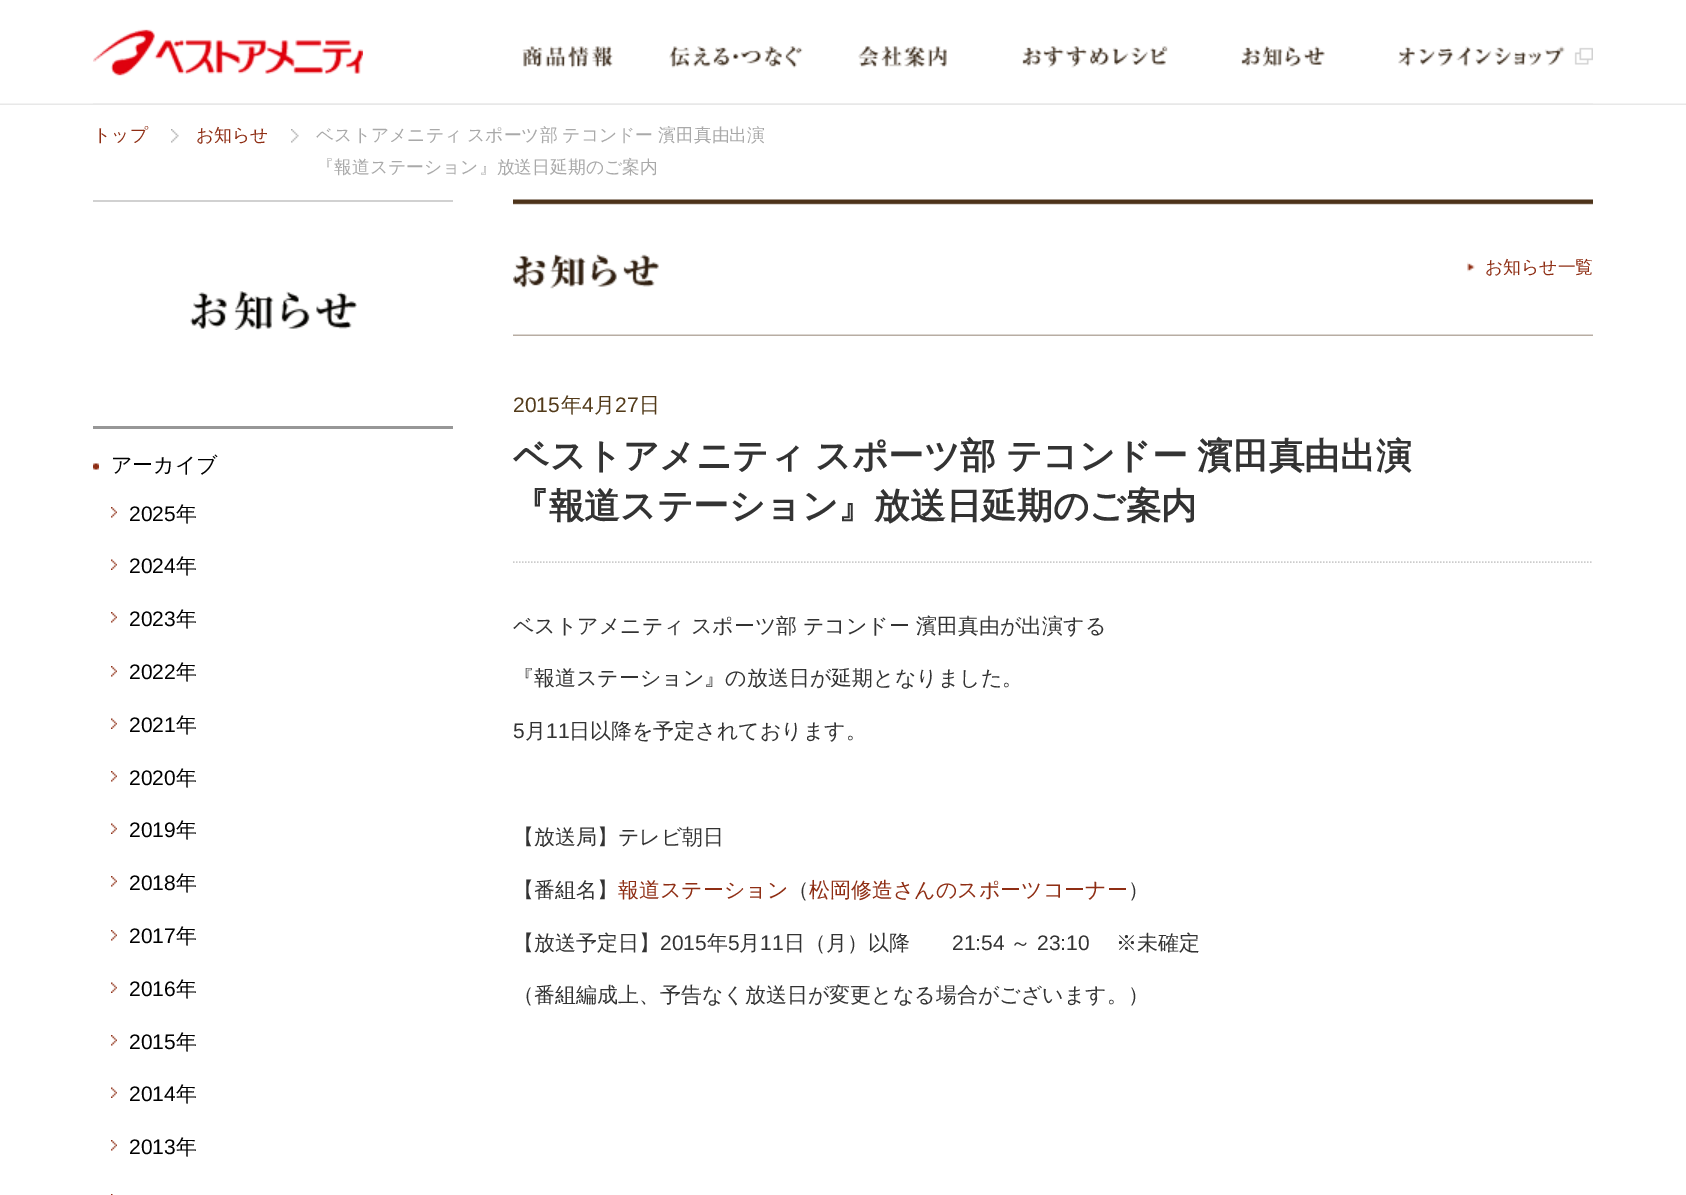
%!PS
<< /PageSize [1686 1195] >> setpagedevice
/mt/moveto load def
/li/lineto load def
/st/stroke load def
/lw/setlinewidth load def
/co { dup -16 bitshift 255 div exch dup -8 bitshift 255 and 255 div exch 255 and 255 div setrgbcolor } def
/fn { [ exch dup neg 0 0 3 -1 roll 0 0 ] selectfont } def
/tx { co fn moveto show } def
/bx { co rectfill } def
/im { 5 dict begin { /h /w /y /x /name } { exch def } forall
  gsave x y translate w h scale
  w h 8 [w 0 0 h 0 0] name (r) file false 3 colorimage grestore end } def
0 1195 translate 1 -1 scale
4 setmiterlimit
0 0 1686 1195 16#FFFFFF bx
(media/1.raw) 0 103 1686 2 im
93 103 1500 1 16#EDEDED bx
(media/2.raw) 93 29 270 47 im
(media/3.raw) 522 46 91 22 im
(media/4.raw) 669 46 134 22 im
(media/5.raw) 858 46 89 22 im
(media/6.raw) 1022 46 146 22 im
(media/7.raw) 1241 46 84 21 im
(media/8.raw) 1398 46 195 21 im
(media/9.raw) 171 129 8 14 im
(media/10.raw) 291 129 8 14 im
93 200 360 2 16#D1D1D1 bx
93 426 360 3 16#979797 bx
(media/11.raw) 190 291 167 39 im
(media/12.raw) 93 463 6 7 im
(media/13.raw) 111 507 6 11 im
(media/14.raw) 111 559 6 11 im
(media/13.raw) 111 612 6 11 im
(media/13.raw) 111 666 6 11 im
(media/14.raw) 111 718 6 11 im
(media/13.raw) 111 771 6 11 im
(media/14.raw) 111 823 6 11 im
(media/13.raw) 111 876 6 11 im
(media/13.raw) 111 930 6 11 im
(media/14.raw) 111 982 6 11 im
(media/13.raw) 111 1035 6 11 im
(media/14.raw) 111 1087 6 11 im
(media/13.raw) 111 1140 6 11 im
(media/15.raw) 111 1194 2 1 im
(media/16.raw) 513 199 1080 137 im
(media/17.raw) 1467 262 8 10 im
16#CCCCCC co
1.5 lw
[1.5 1.5] 0 setdash
513 562 mt 1593 562 li st
(トップ) 93 141 /WenQuanYiZenHei-Medium 17.85 16#8F2E14 tx
(お知らせ) 196 141 /WenQuanYiZenHei-Medium 17.85 16#8F2E14 tx
16#A9A9A9 co
316 141 mt -.5 0 32 (ベストアメニティ スポーツ部 テコンドー 濱田真由出演) widthshow
(『報道ステーション』放送日延期のご案内) 316 173 /WenQuanYiZenHei-Medium 17.85 16#A9A9A9 tx
(アーカイブ) 111 472 /WenQuanYiZenHei-Medium 21 16#000000 tx
(2025) 129 521 /LiberationSans-Regular 21 16#000000 tx
(年) 176 521 /WenQuanYiZenHei-Medium 21 16#000000 tx
(2024) 129 573 /LiberationSans-Regular 21 16#000000 tx
(年) 176 573 /WenQuanYiZenHei-Medium 21 16#000000 tx
(2023) 129 626 /LiberationSans-Regular 21 16#000000 tx
(年) 176 626 /WenQuanYiZenHei-Medium 21 16#000000 tx
(2022) 129 679 /LiberationSans-Regular 21 16#000000 tx
(年) 176 679 /WenQuanYiZenHei-Medium 21 16#000000 tx
(2021) 129 732 /LiberationSans-Regular 21 16#000000 tx
(年) 176 732 /WenQuanYiZenHei-Medium 21 16#000000 tx
(2020) 129 785 /LiberationSans-Regular 21 16#000000 tx
(年) 176 785 /WenQuanYiZenHei-Medium 21 16#000000 tx
(2019) 129 837 /LiberationSans-Regular 21 16#000000 tx
(年) 176 837 /WenQuanYiZenHei-Medium 21 16#000000 tx
(2018) 129 890 /LiberationSans-Regular 21 16#000000 tx
(年) 176 890 /WenQuanYiZenHei-Medium 21 16#000000 tx
(2017) 129 943 /LiberationSans-Regular 21 16#000000 tx
(年) 176 943 /WenQuanYiZenHei-Medium 21 16#000000 tx
(2016) 129 996 /LiberationSans-Regular 21 16#000000 tx
(年) 176 996 /WenQuanYiZenHei-Medium 21 16#000000 tx
(2015) 129 1049 /LiberationSans-Regular 21 16#000000 tx
(年) 176 1049 /WenQuanYiZenHei-Medium 21 16#000000 tx
(2014) 129 1101 /LiberationSans-Regular 21 16#000000 tx
(年) 176 1101 /WenQuanYiZenHei-Medium 21 16#000000 tx
(2013) 129 1154 /LiberationSans-Regular 21 16#000000 tx
(年) 176 1154 /WenQuanYiZenHei-Medium 21 16#000000 tx
(お知らせ一覧) 1485 273 /WenQuanYiZenHei-Medium 17.85 16#8F2E14 tx
(2015) 513 412 /LiberationSans-Regular 21 16#523A19 tx
(年) 561 412 /WenQuanYiZenHei-Medium 21 16#523A19 tx
(4) 582 412 /LiberationSans-Regular 21 16#523A19 tx
(月) 594 412 /WenQuanYiZenHei-Medium 21 16#523A19 tx
(27) 615 412 /LiberationSans-Regular 21 16#523A19 tx
(日) 639 412 /WenQuanYiZenHei-Medium 21 16#523A19 tx
/WenQuanYiZenHei-Bold 35.7 fn
16#333333 co
513 468 mt -1 0 32 (ベストアメニティ スポーツ部 テコンドー 濱田真由出演) widthshow
(『報道ステーション』放送日延期のご案内) 513 518 /WenQuanYiZenHei-Bold 35.7 16#333333 tx
/WenQuanYiZenHei-Medium 21 fn
513 633 mt -.5 0 32 (ベストアメニティ スポーツ部 テコンドー 濱田真由が出演する) widthshow
(『報道ステーション』の放送日が延期となりました。) 513 685 /WenQuanYiZenHei-Medium 21 16#333333 tx
(5) 513 738 /LiberationSans-Regular 21 16#333333 tx
(月) 525 738 /WenQuanYiZenHei-Medium 21 16#333333 tx
(11) 546 738 /LiberationSans-Regular 21 16#333333 tx
(日以降を予定されております。) 569 738 /WenQuanYiZenHei-Medium 21 16#333333 tx
(【放送局】テレビ朝日) 513 844 /WenQuanYiZenHei-Medium 21 16#333333 tx
(【番組名】) 513 897 /WenQuanYiZenHei-Medium 21 16#333333 tx
(報道ステーション) 618 897 /WenQuanYiZenHei-Medium 21 16#8F2E14 tx
(（) 788 897 /WenQuanYiZenHei-Medium 21 16#333333 tx
(松岡修造さんのスポーツコーナー) 809 897 /WenQuanYiZenHei-Medium 21 16#8F2E14 tx
(）) 1128 897 /WenQuanYiZenHei-Medium 21 16#333333 tx
(【放送予定日】) 513 950 /WenQuanYiZenHei-Medium 21 16#333333 tx
(2015) 660 950 /LiberationSans-Regular 21 16#333333 tx
(年) 707 950 /WenQuanYiZenHei-Medium 21 16#333333 tx
(5) 728 950 /LiberationSans-Regular 21 16#333333 tx
(月) 739 950 /WenQuanYiZenHei-Medium 21 16#333333 tx
(11) 760 950 /LiberationSans-Regular 21 16#333333 tx
(日（月）以降) 784 950 /WenQuanYiZenHei-Medium 21 16#333333 tx
(21:54) 952 950 /LiberationSans-Regular 21 16#333333 tx
(～) 1010 950 /WenQuanYiZenHei-Medium 21 16#333333 tx
(23:10) 1037 950 /LiberationSans-Regular 21 16#333333 tx
(※未確定) 1116 950 /WenQuanYiZenHei-Medium 21 16#333333 tx
(（番組編成上、予告なく放送日が変更となる場合がございます。）) 513 1002 /WenQuanYiZenHei-Medium 21 16#333333 tx
showpage
